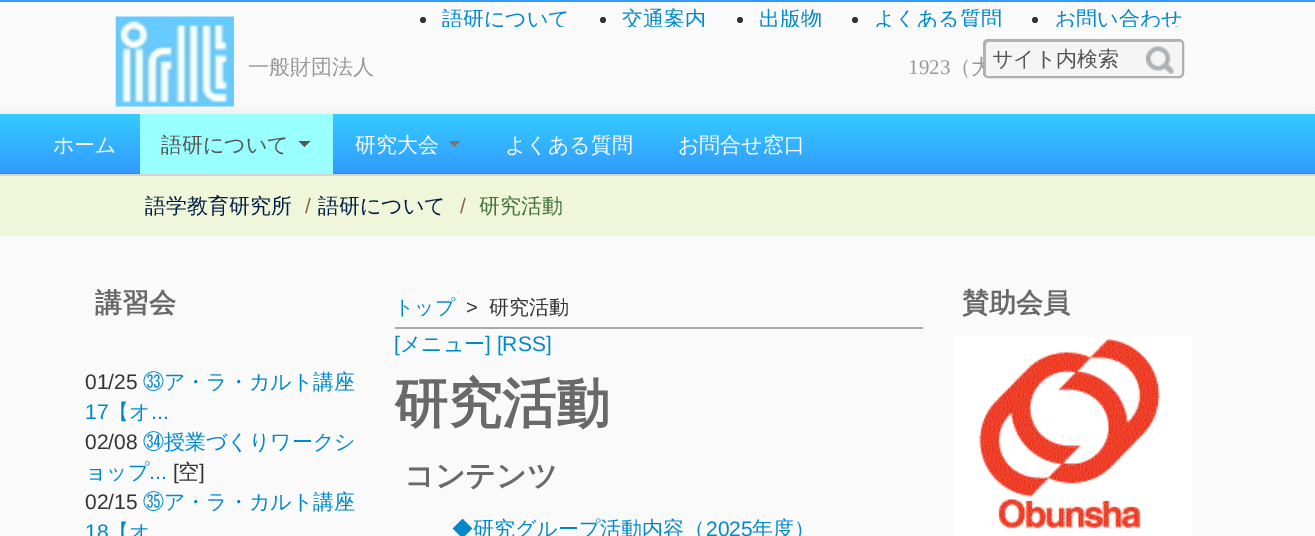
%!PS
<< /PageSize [1315 536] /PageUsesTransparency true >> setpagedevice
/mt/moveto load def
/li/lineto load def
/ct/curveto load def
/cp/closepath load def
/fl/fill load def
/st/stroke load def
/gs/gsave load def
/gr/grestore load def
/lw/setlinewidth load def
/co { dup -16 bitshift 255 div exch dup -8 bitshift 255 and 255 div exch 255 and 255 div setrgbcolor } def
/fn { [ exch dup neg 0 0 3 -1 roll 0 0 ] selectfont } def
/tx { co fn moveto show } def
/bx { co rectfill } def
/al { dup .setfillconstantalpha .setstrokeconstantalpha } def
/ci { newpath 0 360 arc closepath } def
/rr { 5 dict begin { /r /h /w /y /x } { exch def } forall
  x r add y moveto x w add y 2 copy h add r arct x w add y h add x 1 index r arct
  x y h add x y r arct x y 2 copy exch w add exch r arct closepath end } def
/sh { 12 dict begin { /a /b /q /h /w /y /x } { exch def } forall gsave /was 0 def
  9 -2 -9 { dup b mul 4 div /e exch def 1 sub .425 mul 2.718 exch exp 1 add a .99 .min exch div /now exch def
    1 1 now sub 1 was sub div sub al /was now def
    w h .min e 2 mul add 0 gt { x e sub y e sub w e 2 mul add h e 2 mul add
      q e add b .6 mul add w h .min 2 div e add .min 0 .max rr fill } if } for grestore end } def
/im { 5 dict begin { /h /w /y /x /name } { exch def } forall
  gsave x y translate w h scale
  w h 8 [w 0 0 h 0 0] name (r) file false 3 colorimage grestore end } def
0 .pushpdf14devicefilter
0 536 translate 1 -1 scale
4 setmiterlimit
0 0 1315 536 16#FAFAFA bx
0 0 1315 2 16#3399FF bx
16#333333 co
423 20 3 ci fl
603 20 3 ci fl
740 20 3 ci fl
855 20 3 ci fl
1035 20 3 ci fl
16#000000 co
0 116 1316 61 0 7.5 .1 sh
(media/1.raw) 115 16 119 91 im
gs 0 114 mt 1315 114 li 1315 173 li 0 173 li cp clip newpath
<< /ShadingType 2 /ColorSpace /DeviceRGB /Coords [658 114 658 174] /Extend [true true] /Function << /FunctionType 2 /Domain [0 1] /C0 [.2 .8 1] /C1 [.2 .6 1] /N 1 >> >> shfill gr
gs 0 173 mt 1315 173 li 1315 174 li 0 174 li cp clip newpath
<< /ShadingType 2 /ColorSpace /DeviceRGB /Coords [658 114 658 174] /Extend [true true] /Function << /FunctionType 2 /Domain [0 1] /C0 [.18 .722 .902] /C1 [.18 .541 .902] /N 1 >> >> shfill gr
0 174 1315 2 16#D4D4D4 bx
140 114 193 60 16#99FFFF bx
16#555555 co
298.5 141 mt 310.5 141 li 304.5 147 li cp fl
16#777777 co
448.5 141 mt 460.5 141 li 454.5 147 li cp fl
0 176 1315 60 16#F0F6DA bx
395 327 528 2 16#AAAAAA bx
(media/3.raw) 953 336 239 200 im
gs
353 3 831 24 rectclip
(語研について) 442 26 /WenQuanYiZenHei-Medium 21 16#0088CC tx
(交通案内) 622 26 /WenQuanYiZenHei-Medium 21 16#0088CC tx
(出版物) 759 26 /WenQuanYiZenHei-Medium 21 16#0088CC tx
(よくある質問) 874 26 /WenQuanYiZenHei-Medium 21 16#0088CC tx
(お問い合わせ) 1055 26 /WenQuanYiZenHei-Medium 21 16#0088CC tx
gr
(一般財団法人) 248 74 /WenQuanYiZenHei-Medium 21 16#999999 tx
(1923) 908 74 /LiberationSerif-Regular 21 16#999999 tx
(（大) 950 74 /WenQuanYiZenHei-Medium 21 16#999999 tx
16#F5F5F5 co
983 39 201 39 5 rr fl
16#B8B8B8 co
988 42 mt 1181 42 li 1181 41 1180 41 1179 41 ct 987 41 li 985 41 984 42 984 44 ct 984 74 li 984 75 985 77 986 77 ct 986 75 li 986 45 li 986 43 987 42 988 42 ct cp fl
16#AFAFAF co
2 lw
984 40 199 37 4 rr st
(サイト内検索) 992 66 /WenQuanYiZenHei-Medium 21 16#555555 tx
(media/2.raw) 1146 46 29 28 im
(ホーム) 53 152 /WenQuanYiZenHei-Medium 21 16#FAFAFA tx
(語研について) 161 152 /WenQuanYiZenHei-Medium 21 16#555555 tx
(研究大会) 355 152 /WenQuanYiZenHei-Medium 21 16#FAFAFA tx
(よくある質問) 505 152 /WenQuanYiZenHei-Medium 21 16#FAFAFA tx
(お問合せ窓口) 678 152 /WenQuanYiZenHei-Medium 21 16#FAFAFA tx
(語学教育研究所) 145 213 /WenQuanYiZenHei-Medium 21 16#001E43 tx
(/) 305 213 /LiberationSans-Regular 21 16#8D6449 tx
(語研について) 318 213 /WenQuanYiZenHei-Medium 21 16#001E43 tx
(/) 460 213 /LiberationSans-Regular 21 16#8D6449 tx
(研究活動) 479 213 /WenQuanYiZenHei-Medium 21 16#417038 tx
(講習会) 95 312 /WenQuanYiZenHei-Bold 27 16#696969 tx
(01/25) 85 389 /LiberationSans-Regular 21 16#333333 tx
(㉝) 143 389 /IPAPGothic-Regular 21 16#0088CC tx
(ア・ラ・カルト講座) 164 389 /WenQuanYiZenHei-Medium 21 16#0088CC tx
(17) 85 419 /LiberationSans-Regular 21 16#0088CC tx
(【オ) 108 419 /WenQuanYiZenHei-Medium 21 16#0088CC tx
(...) 151 419 /LiberationSans-Regular 21 16#0088CC tx
(02/08) 85 449 /LiberationSans-Regular 21 16#333333 tx
(㉞) 143 449 /IPAPGothic-Regular 21 16#0088CC tx
(授業づくりワークシ) 164 449 /WenQuanYiZenHei-Medium 21 16#0088CC tx
(ョップ) 85 479 /WenQuanYiZenHei-Medium 21 16#0088CC tx
(...) 149 479 /LiberationSans-Regular 21 16#0088CC tx
([) 173 479 /LiberationSans-Regular 21 16#333333 tx
(空) 178 479 /WenQuanYiZenHei-Medium 21 16#333333 tx
(]) 199 479 /LiberationSans-Regular 21 16#333333 tx
(02/15) 85 509 /LiberationSans-Regular 21 16#333333 tx
(㉟) 143 509 /IPAPGothic-Regular 21 16#0088CC tx
(ア・ラ・カルト講座) 164 509 /WenQuanYiZenHei-Medium 21 16#0088CC tx
(18) 85 539 /LiberationSans-Regular 21 16#0088CC tx
(【オ) 108 539 /WenQuanYiZenHei-Medium 21 16#0088CC tx
(トップ) 394 314 /WenQuanYiZenHei-Medium 20 16#0088CC tx
(>) 466 314 /LiberationSans-Regular 20 16#333333 tx
(研究活動) 489 314 /WenQuanYiZenHei-Medium 20 16#333333 tx
([) 394 351 /LiberationSans-Regular 21 16#0088CC tx
(メニュー) 400 351 /WenQuanYiZenHei-Medium 21 16#0088CC tx
(] [RSS]) 485 351 /LiberationSans-Regular 21 16#0088CC tx
(研究活動) 394 422 /WenQuanYiZenHei-Bold 54 16#696969 tx
(コンテンツ) 404 486 /WenQuanYiZenHei-Bold 30 16#696969 tx
(◆研究グループ活動内容（) 452 536 /WenQuanYiZenHei-Medium 21 16#0088CC tx
(2025) 706 536 /LiberationSans-Regular 21 16#0088CC tx
(年度）) 752 536 /WenQuanYiZenHei-Medium 21 16#0088CC tx
(賛助会員) 962 312 /WenQuanYiZenHei-Bold 27 16#696969 tx
.poppdf14devicefilter showpage
